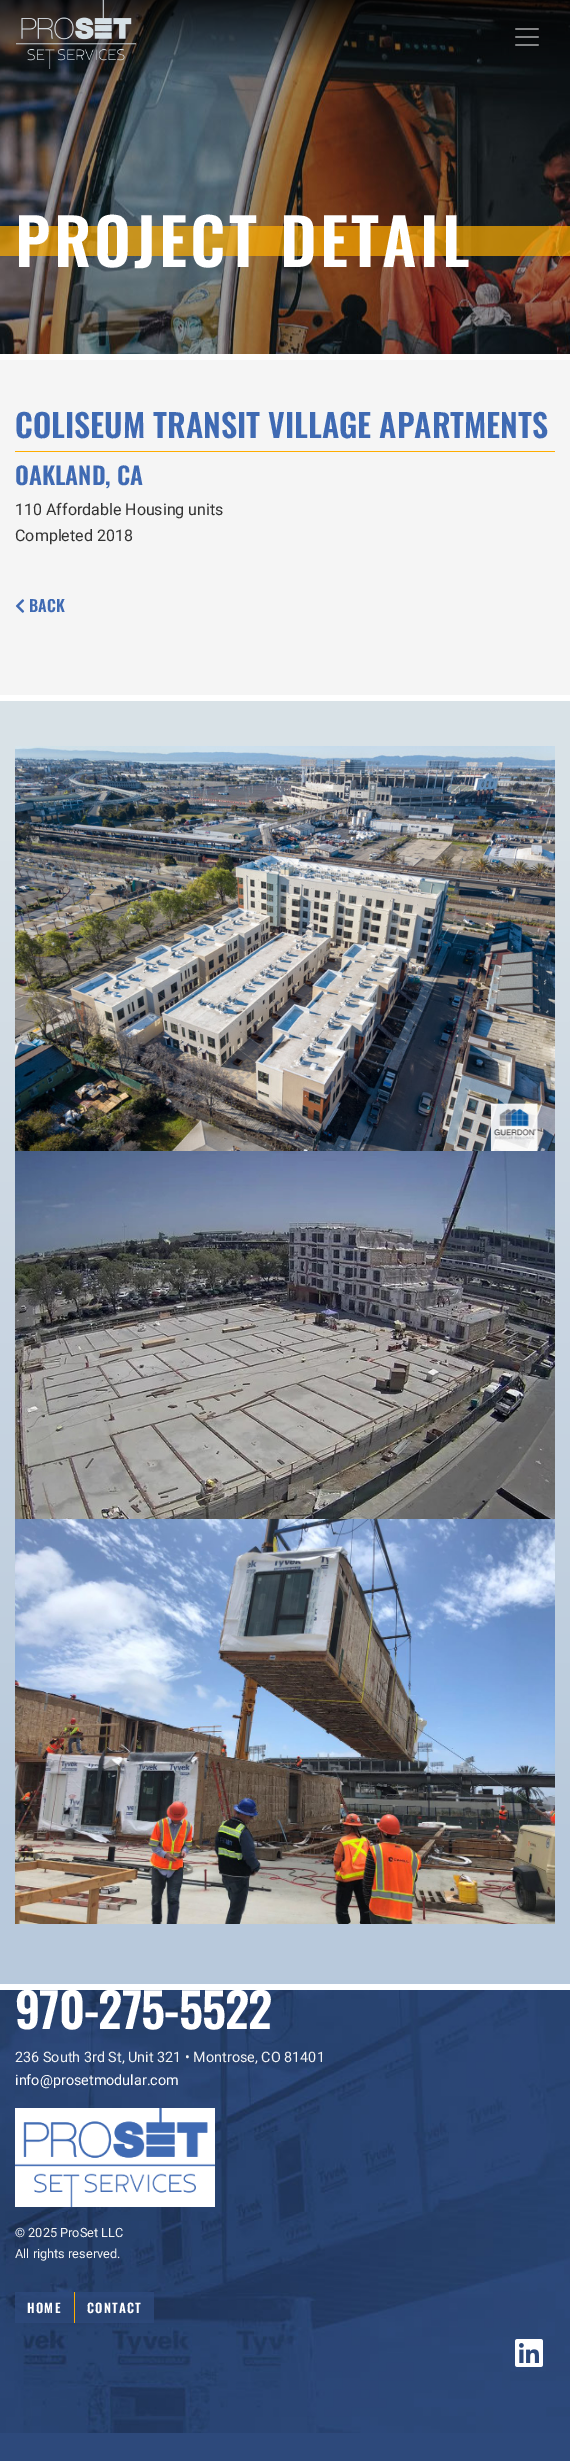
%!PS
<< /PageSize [570 2461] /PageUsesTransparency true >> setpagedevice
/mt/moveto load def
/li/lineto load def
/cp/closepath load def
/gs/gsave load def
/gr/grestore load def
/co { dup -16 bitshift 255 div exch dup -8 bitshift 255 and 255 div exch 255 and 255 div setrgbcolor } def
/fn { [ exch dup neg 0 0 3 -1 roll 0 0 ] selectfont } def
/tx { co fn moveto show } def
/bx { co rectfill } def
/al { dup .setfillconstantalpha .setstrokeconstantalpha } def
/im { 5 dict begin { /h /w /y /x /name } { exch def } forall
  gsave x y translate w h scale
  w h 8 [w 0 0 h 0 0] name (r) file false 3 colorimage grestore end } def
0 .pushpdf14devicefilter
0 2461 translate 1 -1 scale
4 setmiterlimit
0 0 570 2461 16#2D497B bx
0 360 570 335 16#F5F5F5 bx
(media/3.raw) 0 0 570 354 im
(media/1.raw) 16 0 120 69 im
(media/2.raw) 515 28 24 18 im
0 354 570 6 16#FFFFFF bx
0.7 al
0 226 570 30 16#FFAD00 bx
1 al
15 451 540 1 16#FFAD00 bx
(media/4.raw) 15 599 10 14 im
gs 0 701 mt 570 701 li 570 1984 li 0 1984 li cp clip newpath
<< /ShadingType 2 /ColorSpace /DeviceRGB /Coords [285 701 285 1984] /Extend [true true] /Function << /FunctionType 3 /Domain [0 1] /Functions [<< /FunctionType 2 /Domain [0 1] /C0 [.851 .886 .906] /C1 [.851 .886 .906] /N 1 >> << /FunctionType 2 /Domain [0 1] /C0 [.851 .886 .906] /C1 [.722 .788 .863] /N 1 >> << /FunctionType 2 /Domain [0 1] /C0 [.722 .788 .863] /C1 [.722 .788 .863] /N 1 >>] /Bounds [.1 .9] /Encode [0 1 0 1 0 1] >> >> shfill gr
0 695 570 6 16#FFFFFF bx
(media/5.raw) 15 746 540 405 im
(media/6.raw) 15 1151 540 368 im
(media/7.raw) 15 1519 540 405 im
(media/8.raw) 0 1990 570 443 im
0 1984 570 6 16#FFFFFF bx
(media/9.raw) 15 2108 200 99 im
0.8 al
15 2292 59 31 16#2D497B bx
75 2292 79 31 16#2D497B bx
1 al
74 2292 1 31 16#FFAD00 bx
(media/10.raw) 515 2339 28 28 im
/Oswald-SemiBold 64 fn
16#FFFFFF co
15 267 mt 3.25 0 (PROJECT DETAIL) ashow
(COLISEUM TRANSIT VILLAGE APARTMENTS) 15 438 /Oswald-SemiBold 32 16#3F6AB3 tx
(OAKLAND, CA) 15 485 /Oswald-SemiBold 24 16#3F6AB3 tx
(110 Affordable Housing units) 15 515 /Roboto-Regular 16 16#333333 tx
(Completed 2018) 15 541 /Roboto-Regular 16 16#333333 tx
(BACK) 29 612 /Oswald-SemiBold 16 16#3F6AB3 tx
/Oswald-SemiBold 48 fn
16#FFFFFF co
15 2029 mt -1 0 (970-275-5522) ashow
(236 South 3rd St, Unit 321 • Montrose, CO 81401) 15 2062 /Roboto-Regular 14.4 16#F5F5F5 tx
(info@prosetmodular.com) 15 2085 /Roboto-Regular 14.4 16#FFFFFF tx
(© 2025 ProSet LLC) 15 2237 /Roboto-Regular 12.75 16#F5F5F5 tx
(All rights reserved.) 15 2258 /Roboto-Regular 12.75 16#F5F5F5 tx
/Oswald-SemiBold 12.75 fn
16#FFFFFF co
27 2313 mt 1.25 0 (HOME) ashow
87 2313 mt 1.25 0 (CONTACT) ashow
.poppdf14devicefilter showpage
